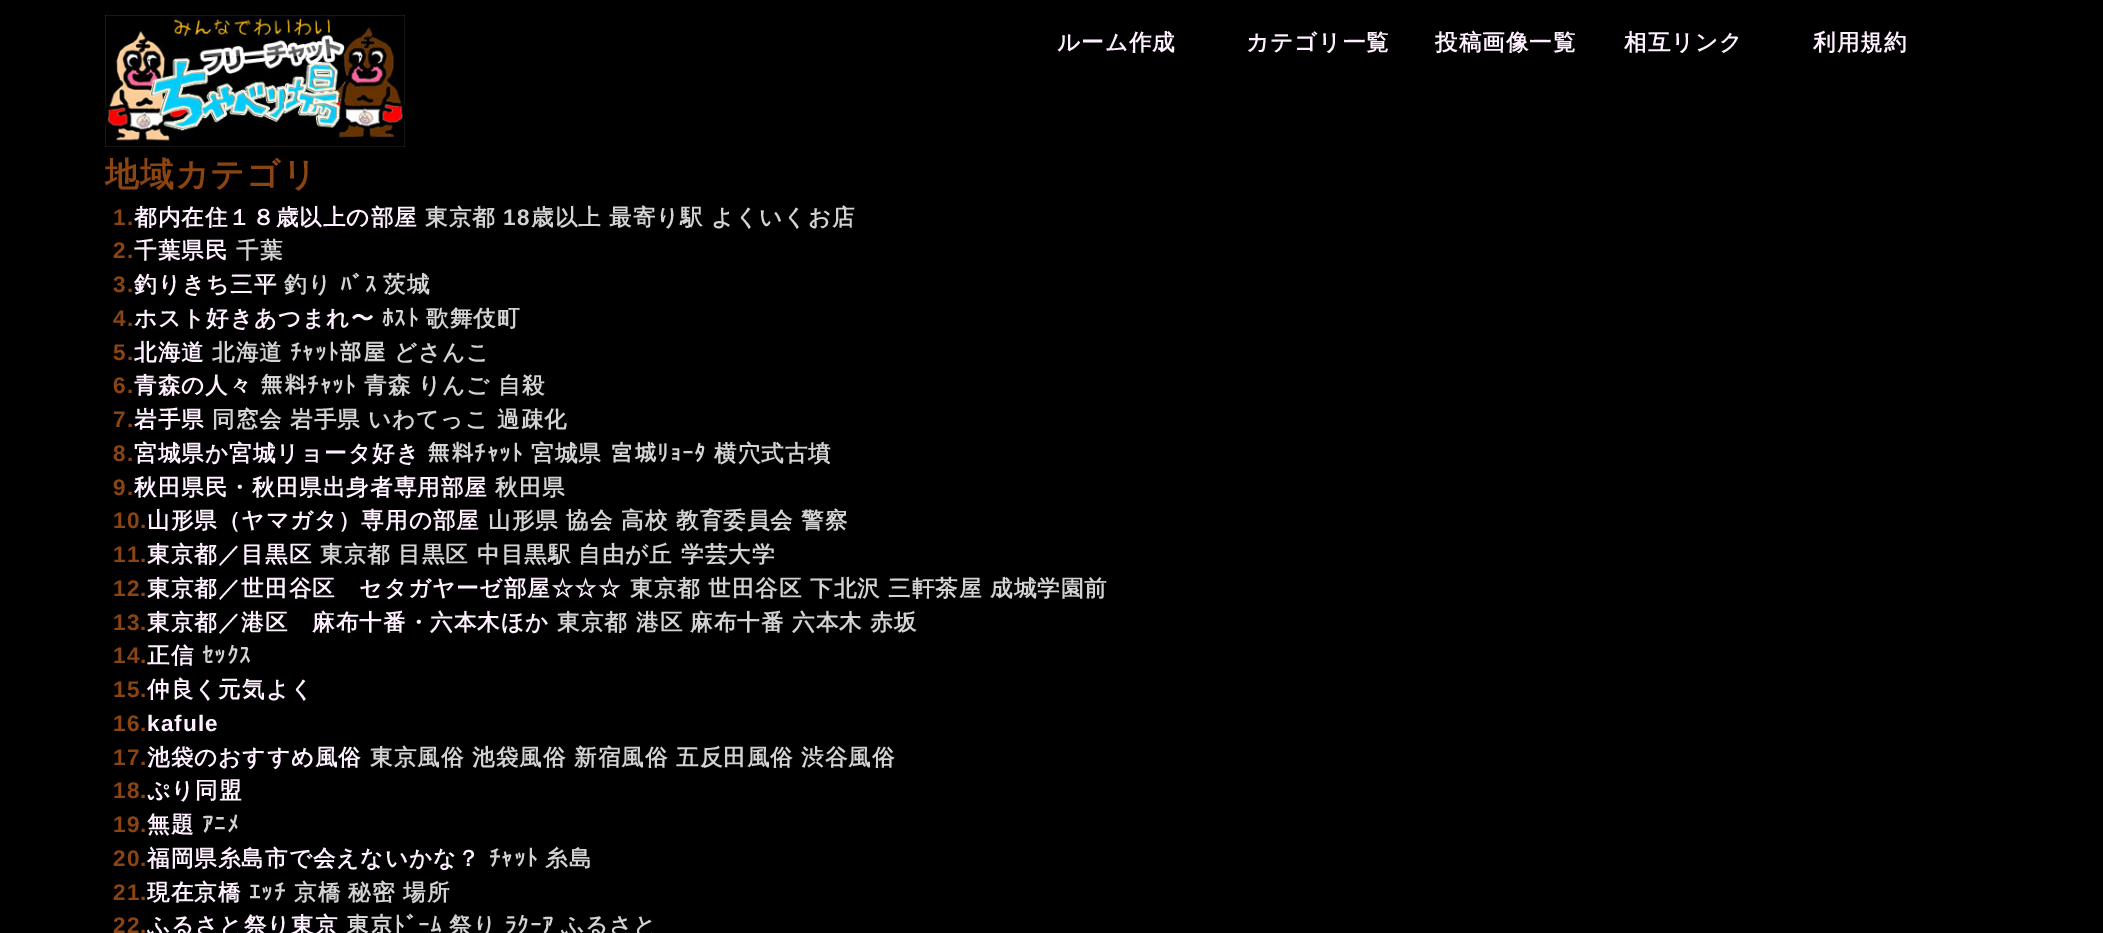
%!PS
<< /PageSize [2103 933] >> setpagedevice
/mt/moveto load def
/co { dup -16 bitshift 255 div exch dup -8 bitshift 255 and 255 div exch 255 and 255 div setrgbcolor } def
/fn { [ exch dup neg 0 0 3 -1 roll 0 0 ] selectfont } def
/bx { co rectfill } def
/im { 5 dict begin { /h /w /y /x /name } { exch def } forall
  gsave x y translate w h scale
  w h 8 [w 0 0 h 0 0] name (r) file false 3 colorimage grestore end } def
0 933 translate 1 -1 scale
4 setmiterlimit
0 0 2103 933 16#000000 bx
(media/1.raw) 105 15 300 132 im
/WenQuanYiZenHei-Bold 22.5 fn
16#FFF0FF co
1057 50 mt 1.1 0 (ルーム作成) ashow
1246 50 mt 1.1 0 (カテゴリ一覧) ashow
1435 50 mt 1.1 0 (投稿画像一覧) ashow
1624 50 mt 1.1 0 (相互リンク) ashow
1813 50 mt 1.1 0 (利用規約) ashow
/WenQuanYiZenHei-Bold 33.75 fn
16#8B4513 co
105 186 mt 1.1 0 (地域カテゴリ) ashow
/LiberationSans-Bold 22.5 fn
113 225 mt 1.1 0 (1.) ashow
/WenQuanYiZenHei-Bold 22.5 fn
16#FFF0FF co
134 225 mt 1.1 0 (都内在住１８歳以上の部屋) ashow
16#D3D3D3 co
425 225 mt 1.1 0 (東京都) ashow
/LiberationSans-Bold 22.5 fn
503 225 mt 1.1 0 (18) ashow
/WenQuanYiZenHei-Bold 22.5 fn
531 225 mt 1.1 0 (歳以上) ashow
609 225 mt 1.1 0 (最寄り駅) ashow
711 225 mt 1.1 0 (よくいくお店) ashow
/LiberationSans-Bold 22.5 fn
16#8B4513 co
113 258 mt 1.1 0 (2.) ashow
/WenQuanYiZenHei-Bold 22.5 fn
16#FFF0FF co
134 258 mt 1.1 0 (千葉県民) ashow
16#D3D3D3 co
236 258 mt 1.1 0 (千葉) ashow
/LiberationSans-Bold 22.5 fn
16#8B4513 co
113 292 mt 1.1 0 (3.) ashow
/WenQuanYiZenHei-Bold 22.5 fn
16#FFF0FF co
134 292 mt 1.1 0 (釣りきち三平) ashow
16#D3D3D3 co
284 292 mt 1.1 0 (釣り) ashow
/IPAGothic-Bold 22.5 fn
340 292 mt 1.1 0 (ﾊﾞｽ) ashow
/WenQuanYiZenHei-Bold 22.5 fn
383 292 mt 1.1 0 (茨城) ashow
/LiberationSans-Bold 22.5 fn
16#8B4513 co
113 326 mt 1.1 0 (4.) ashow
/WenQuanYiZenHei-Bold 22.5 fn
16#FFF0FF co
134 326 mt 1.1 0 (ホスト好きあつまれ〜) ashow
/IPAGothic-Bold 22.5 fn
16#D3D3D3 co
382 326 mt 1.1 0 (ﾎｽﾄ) ashow
/WenQuanYiZenHei-Bold 22.5 fn
426 326 mt 1.1 0 (歌舞伎町) ashow
/LiberationSans-Bold 22.5 fn
16#8B4513 co
113 360 mt 1.1 0 (5.) ashow
/WenQuanYiZenHei-Bold 22.5 fn
16#FFF0FF co
134 360 mt 1.1 0 (北海道) ashow
16#D3D3D3 co
212 360 mt 1.1 0 (北海道) ashow
/IPAGothic-Bold 22.5 fn
290 360 mt 1.1 0 (ﾁｬｯﾄ部屋) ashow
/WenQuanYiZenHei-Bold 22.5 fn
394 360 mt 1.1 0 (どさんこ) ashow
/LiberationSans-Bold 22.5 fn
16#8B4513 co
113 393 mt 1.1 0 (6.) ashow
/WenQuanYiZenHei-Bold 22.5 fn
16#FFF0FF co
134 393 mt 1.1 0 (青森の人々) ashow
/IPAGothic-Bold 22.5 fn
16#D3D3D3 co
260 393 mt 1.1 0 (無料ﾁｬｯﾄ) ashow
/WenQuanYiZenHei-Bold 22.5 fn
364 393 mt 1.1 0 (青森) ashow
418 393 mt 1.1 0 (りんご) ashow
498 393 mt 1.1 0 (自殺) ashow
/LiberationSans-Bold 22.5 fn
16#8B4513 co
113 427 mt 1.1 0 (7.) ashow
/WenQuanYiZenHei-Bold 22.5 fn
16#FFF0FF co
134 427 mt 1.1 0 (岩手県) ashow
16#D3D3D3 co
212 427 mt 1.1 0 (同窓会) ashow
290 427 mt 1.1 0 (岩手県) ashow
368 427 mt 1.1 0 (いわてっこ) ashow
497 427 mt 1.1 0 (過疎化) ashow
/LiberationSans-Bold 22.5 fn
16#8B4513 co
113 461 mt 1.1 0 (8.) ashow
/WenQuanYiZenHei-Bold 22.5 fn
16#FFF0FF co
134 461 mt 1.1 0 (宮城県か宮城リョータ好き) ashow
/IPAGothic-Bold 22.5 fn
16#D3D3D3 co
427 461 mt 1.1 0 (無料ﾁｬｯﾄ) ashow
/WenQuanYiZenHei-Bold 22.5 fn
531 461 mt 1.1 0 (宮城県) ashow
/IPAGothic-Bold 22.5 fn
610 461 mt 1.1 0 (宮城ﾘｮｰﾀ) ashow
/WenQuanYiZenHei-Bold 22.5 fn
714 461 mt 1.1 0 (横穴式古墳) ashow
/LiberationSans-Bold 22.5 fn
16#8B4513 co
113 495 mt 1.1 0 (9.) ashow
/WenQuanYiZenHei-Bold 22.5 fn
16#FFF0FF co
134 495 mt 1.1 0 (秋田県民・秋田県出身者専用部屋) ashow
16#D3D3D3 co
495 495 mt 1.1 0 (秋田県) ashow
/LiberationSans-Bold 22.5 fn
16#8B4513 co
113 528 mt 1.1 0 (10.) ashow
/WenQuanYiZenHei-Bold 22.5 fn
16#FFF0FF co
147 528 mt 1.1 0 (山形県（ヤマガタ）専用の部屋) ashow
16#D3D3D3 co
488 528 mt 1.1 0 (山形県) ashow
566 528 mt 1.1 0 (協会) ashow
621 528 mt 1.1 0 (高校) ashow
676 528 mt 1.1 0 (教育委員会) ashow
801 528 mt 1.1 0 (警察) ashow
/LiberationSans-Bold 22.5 fn
16#8B4513 co
113 562 mt 1.1 0 (11.) ashow
/WenQuanYiZenHei-Bold 22.5 fn
16#FFF0FF co
147 562 mt 1.1 0 (東京都／目黒区) ashow
16#D3D3D3 co
320 562 mt 1.1 0 (東京都) ashow
398 562 mt 1.1 0 (目黒区) ashow
477 562 mt 1.1 0 (中目黒駅) ashow
578 562 mt 1.1 0 (自由が丘) ashow
681 562 mt 1.1 0 (学芸大学) ashow
/LiberationSans-Bold 22.5 fn
16#8B4513 co
113 596 mt 1.1 0 (12.) ashow
/WenQuanYiZenHei-Bold 22.5 fn
16#FFF0FF co
147 596 mt 1.1 0 (東京都／世田谷区　セタガヤーゼ部屋☆☆☆) ashow
16#D3D3D3 co
630 596 mt 1.1 0 (東京都) ashow
708 596 mt 1.1 0 (世田谷区) ashow
810 596 mt 1.1 0 (下北沢) ashow
888 596 mt 1.1 0 (三軒茶屋) ashow
990 596 mt 1.1 0 (成城学園前) ashow
/LiberationSans-Bold 22.5 fn
16#8B4513 co
113 630 mt 1.1 0 (13.) ashow
/WenQuanYiZenHei-Bold 22.5 fn
16#FFF0FF co
147 630 mt 1.1 0 (東京都／港区　麻布十番・六本木ほか) ashow
16#D3D3D3 co
557 630 mt 1.1 0 (東京都) ashow
636 630 mt 1.1 0 (港区) ashow
690 630 mt 1.1 0 (麻布十番) ashow
792 630 mt 1.1 0 (六本木) ashow
870 630 mt 1.1 0 (赤坂) ashow
/LiberationSans-Bold 22.5 fn
16#8B4513 co
113 663 mt 1.1 0 (14.) ashow
/WenQuanYiZenHei-Bold 22.5 fn
16#FFF0FF co
147 663 mt 1.1 0 (正信) ashow
/IPAGothic-Bold 22.5 fn
16#D3D3D3 co
202 663 mt 1.1 0 (ｾｯｸｽ) ashow
/LiberationSans-Bold 22.5 fn
16#8B4513 co
113 697 mt 1.1 0 (15.) ashow
/WenQuanYiZenHei-Bold 22.5 fn
16#FFF0FF co
147 697 mt 1.1 0 (仲良く元気よく) ashow
/LiberationSans-Bold 22.5 fn
16#8B4513 co
113 731 mt 1.1 0 (16.) ashow
16#FFF0FF co
147 731 mt 1.1 0 (kafule) ashow
16#8B4513 co
113 765 mt 1.1 0 (17.) ashow
/WenQuanYiZenHei-Bold 22.5 fn
16#FFF0FF co
147 765 mt 1.1 0 (池袋のおすすめ風俗) ashow
16#D3D3D3 co
370 765 mt 1.1 0 (東京風俗) ashow
472 765 mt 1.1 0 (池袋風俗) ashow
574 765 mt 1.1 0 (新宿風俗) ashow
676 765 mt 1.1 0 (五反田風俗) ashow
801 765 mt 1.1 0 (渋谷風俗) ashow
/LiberationSans-Bold 22.5 fn
16#8B4513 co
113 798 mt 1.1 0 (18.) ashow
/WenQuanYiZenHei-Bold 22.5 fn
16#FFF0FF co
147 798 mt 1.1 0 (ぷり同盟) ashow
/LiberationSans-Bold 22.5 fn
16#8B4513 co
113 832 mt 1.1 0 (19.) ashow
/WenQuanYiZenHei-Bold 22.5 fn
16#FFF0FF co
147 832 mt 1.1 0 (無題) ashow
/IPAGothic-Bold 22.5 fn
16#D3D3D3 co
202 832 mt 1.1 0 (ｱﾆﾒ) ashow
/LiberationSans-Bold 22.5 fn
16#8B4513 co
113 866 mt 1.1 0 (20.) ashow
/WenQuanYiZenHei-Bold 22.5 fn
16#FFF0FF co
147 866 mt 1.1 0 (福岡県糸島市で会えないかな？) ashow
/IPAGothic-Bold 22.5 fn
16#D3D3D3 co
489 866 mt 1.1 0 (ﾁｬｯﾄ) ashow
/WenQuanYiZenHei-Bold 22.5 fn
545 866 mt 1.1 0 (糸島) ashow
/LiberationSans-Bold 22.5 fn
16#8B4513 co
113 900 mt 1.1 0 (21.) ashow
/WenQuanYiZenHei-Bold 22.5 fn
16#FFF0FF co
147 900 mt 1.1 0 (現在京橋) ashow
/IPAGothic-Bold 22.5 fn
16#D3D3D3 co
249 900 mt 1.1 0 (ｴｯﾁ) ashow
/WenQuanYiZenHei-Bold 22.5 fn
294 900 mt 1.1 0 (京橋) ashow
348 900 mt 1.1 0 (秘密) ashow
403 900 mt 1.1 0 (場所) ashow
/LiberationSans-Bold 22.5 fn
16#8B4513 co
113 933 mt 1.1 0 (22.) ashow
/WenQuanYiZenHei-Bold 22.5 fn
16#FFF0FF co
147 933 mt 1.1 0 (ふるさと祭り東京) ashow
/IPAGothic-Bold 22.5 fn
16#D3D3D3 co
346 933 mt 1.1 0 (東京ﾄﾞｰﾑ) ashow
/WenQuanYiZenHei-Bold 22.5 fn
449 933 mt 1.1 0 (祭り) ashow
/IPAGothic-Bold 22.5 fn
505 933 mt 1.1 0 (ﾗｸｰｱ) ashow
/WenQuanYiZenHei-Bold 22.5 fn
561 933 mt 1.1 0 (ふるさと) ashow
showpage
